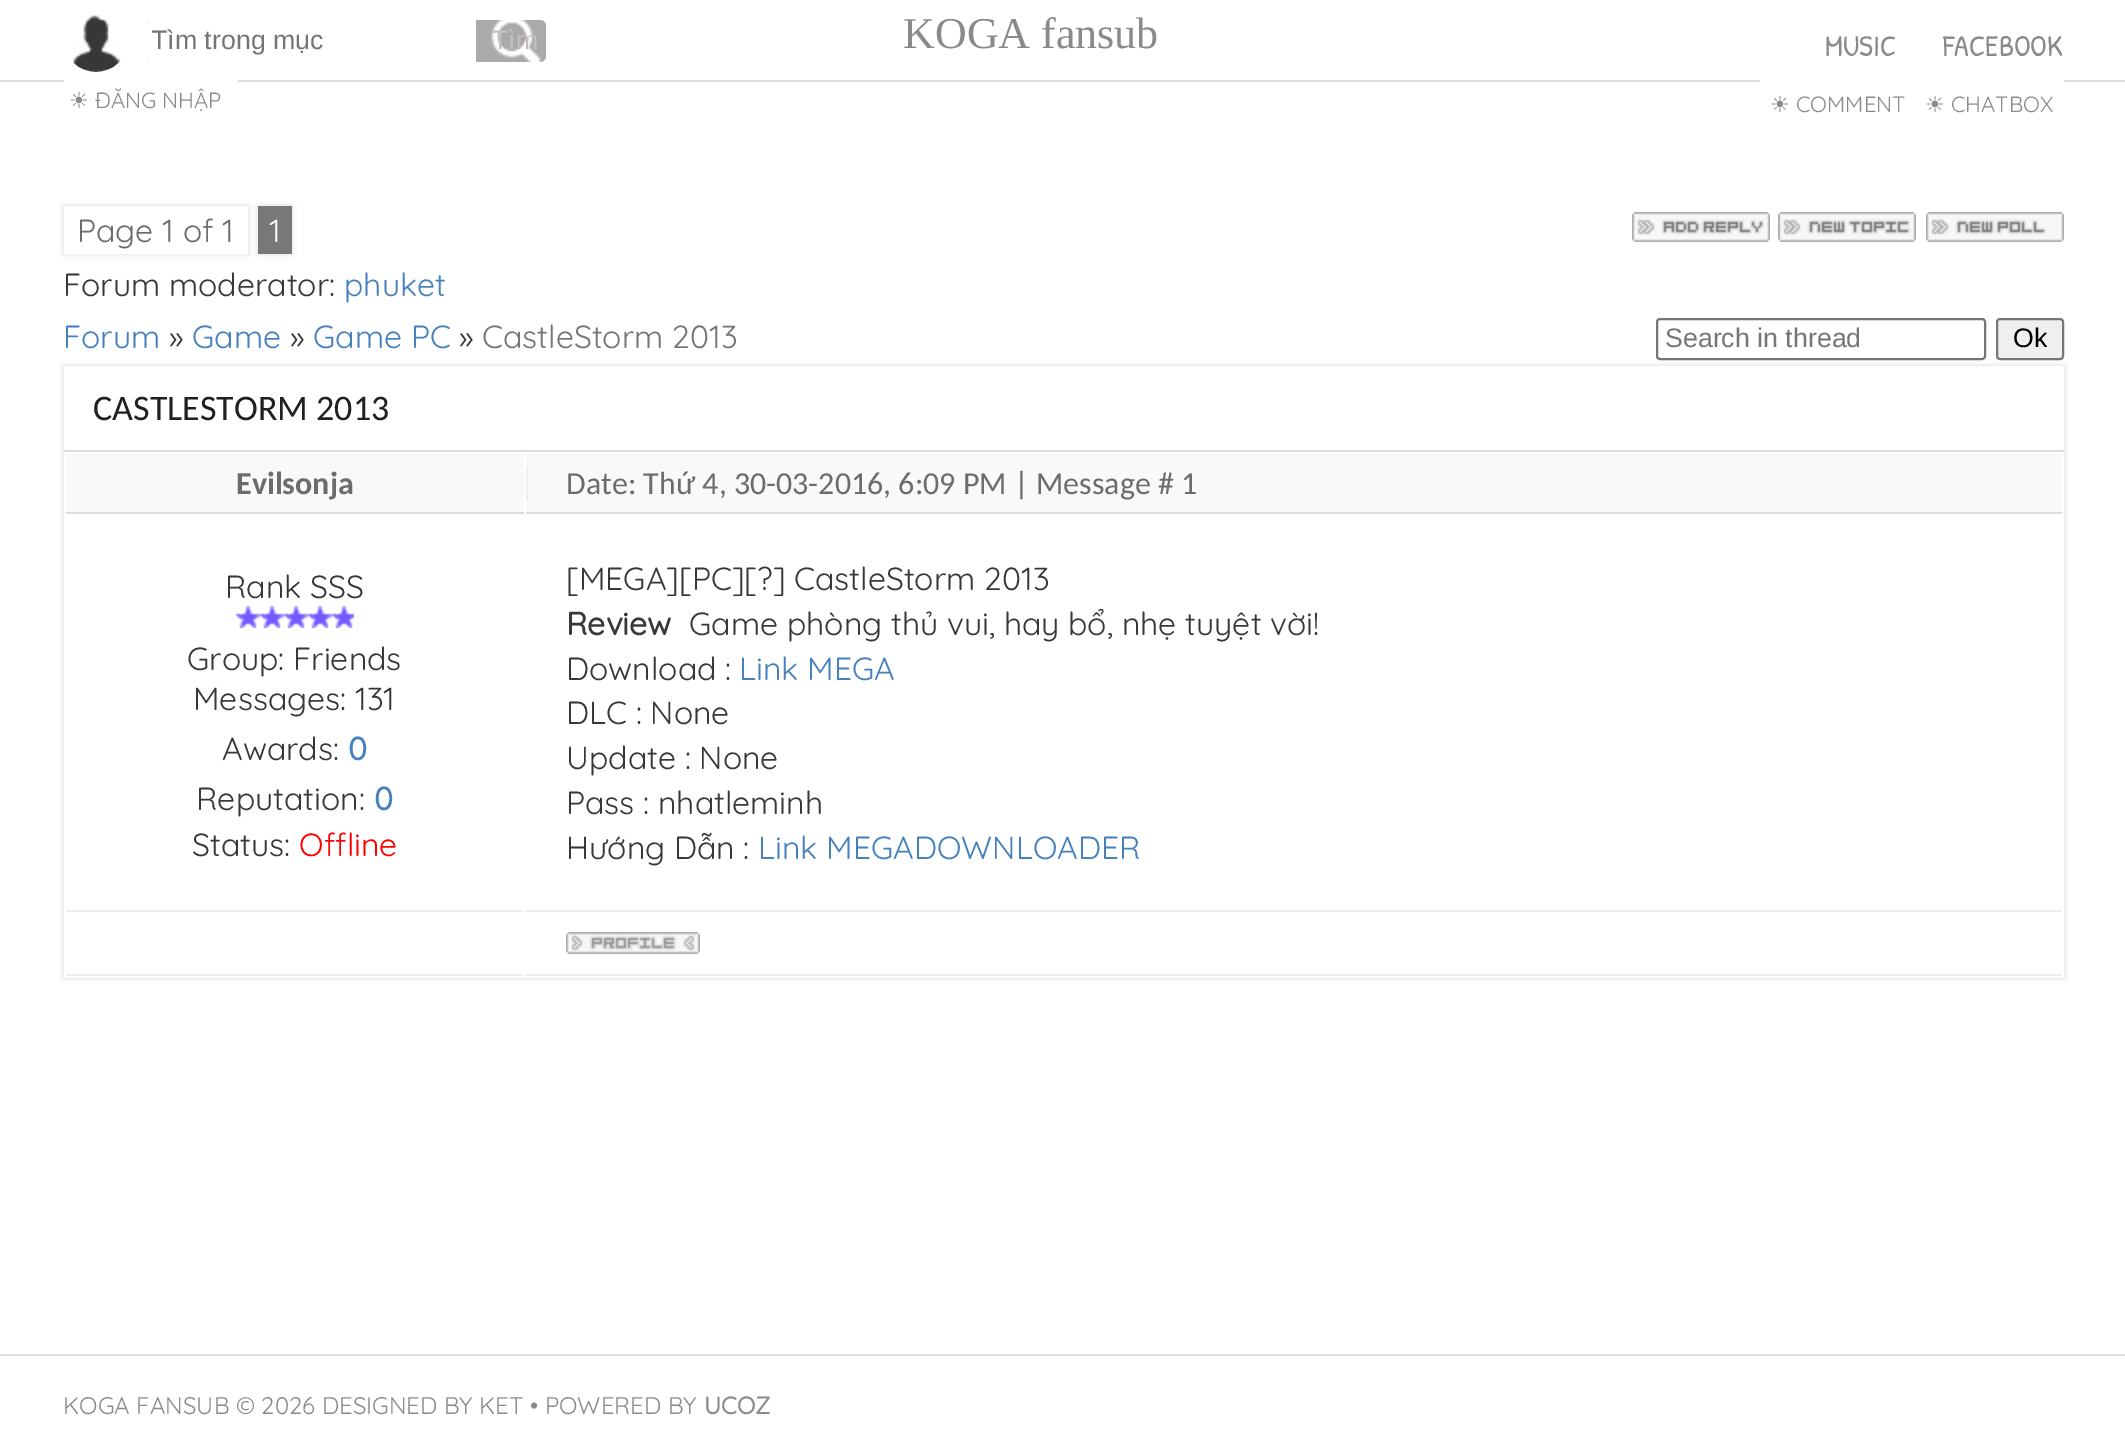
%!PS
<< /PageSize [2125 1436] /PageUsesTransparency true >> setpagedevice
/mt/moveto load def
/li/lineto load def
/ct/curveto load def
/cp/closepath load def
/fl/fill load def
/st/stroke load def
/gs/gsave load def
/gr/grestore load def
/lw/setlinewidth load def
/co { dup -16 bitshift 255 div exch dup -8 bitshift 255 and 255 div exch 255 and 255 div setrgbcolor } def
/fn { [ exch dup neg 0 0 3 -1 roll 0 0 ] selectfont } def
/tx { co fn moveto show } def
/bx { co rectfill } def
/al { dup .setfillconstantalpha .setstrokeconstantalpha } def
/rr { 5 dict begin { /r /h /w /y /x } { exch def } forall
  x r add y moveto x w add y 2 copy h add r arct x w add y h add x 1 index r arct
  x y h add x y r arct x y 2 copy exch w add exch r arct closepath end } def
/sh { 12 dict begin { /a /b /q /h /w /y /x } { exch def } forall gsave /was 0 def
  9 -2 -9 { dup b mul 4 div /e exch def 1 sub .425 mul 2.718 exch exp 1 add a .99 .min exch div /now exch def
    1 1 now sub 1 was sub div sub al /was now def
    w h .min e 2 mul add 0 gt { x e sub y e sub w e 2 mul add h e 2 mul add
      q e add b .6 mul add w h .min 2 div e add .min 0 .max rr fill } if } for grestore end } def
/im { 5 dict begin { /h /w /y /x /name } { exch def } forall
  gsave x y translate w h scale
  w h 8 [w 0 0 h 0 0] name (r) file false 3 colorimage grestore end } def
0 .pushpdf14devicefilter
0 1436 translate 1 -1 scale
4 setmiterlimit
0 0 2125 1436 16#FFFFFF bx
0 80 2125 2 16#DEDEDE bx
(media/1.raw) 73 15 48 57 im
16#AAAAAA co
146 20 400 42 6 rr fl
(media/2.raw) 491 20 50 42 im
16#FFFFFF co
152 20 mt 476 20 li 476 62 li 152 62 li 148.5 62 146 59.5 146 56 ct 146 26 li 146 22.5 148.5 20 152 20 ct cp fl
64 80 mt 238 80 li 238 114 li 238 117.5 235.5 120 232 120 ct 70 120 li 66.5 120 64 117.5 64 114 ct cp fl
1760 80 mt 1916 80 li 1916 128 li 1766 128 li 1762.5 128 1760 125.5 1760 122 ct cp fl
1916 80 mt 2064 80 li 2064 122 li 2064 125.5 2061.5 128 2058 128 ct 1916 128 li cp fl
gs
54 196 mt 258 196 li 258 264 li 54 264 li cp 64 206 mt 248 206 li 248 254 li 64 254 li cp eoclip newpath
16#000000 co
64 206 184 48 0 3 .15 sh
gr
16#000000 co
258 206 34 48 0 3 .15 sh
258 206 34 48 16#787878 bx
(media/3.raw) 1632 212 138 30 im
(media/4.raw) 1778 212 138 30 im
(media/5.raw) 1926 212 138 30 im
gs
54 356 mt 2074 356 li 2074 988 li 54 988 li cp 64 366 mt 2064 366 li 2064 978 li 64 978 li cp eoclip newpath
16#000000 co
64 366 2000 612 0 3 .15 sh
gr
16#767676 co
2 lw
1657 319 328 40 3 rr st
16#EFEFEF co
1997 319 66 40 3 rr gs fl gr
16#767676 co
st
64 450 2000 2 16#DDDDDD bx
66 454 458 58 16#F9F9F9 bx
66 512 458 2 16#DDDDDD bx
526 454 1536 58 16#F9F9F9 bx
526 512 1536 2 16#DDDDDD bx
526 466 2 34 16#EEEEEE bx
66 910 458 2 16#EEEEEE bx
(media/6.raw) 236 606 118 22 im
526 910 1536 2 16#EEEEEE bx
66 974 458 2 16#EEEEEE bx
526 974 1536 2 16#EEEEEE bx
(media/7.raw) 566 932 134 22 im
0 1354 2125 2 16#DEDEDE bx
gs
152 26 318 30 rectclip
(Tìm trong mục) 151 49 /LiberationSans-Regular 26.75 16#757575 tx
gr
(Tìm) 492 49 /LiberationSans-Regular 26.75 16#C1C0BF tx
(☀) 69 108 /DejaVuSans-Regular 22 16#8A8A8A tx
(ĐĂNG NHẬP) 95 108 /Quicksand-Light 22 16#8A8A8A tx
(KOGA fansub) 903 48 /LiberationSerif-Regular 44 16#8A8A8A tx
(MUSIC) 1825 56 /PatrickHandSC-Regular 30 16#8A8A8A tx
(FACEBOOK) 1943 56 /PatrickHandSC-Regular 30 16#8A8A8A tx
(☀) 1770 112 /DejaVuSans-Regular 22 16#8A8A8A tx
(COMMENT) 1796 112 /Quicksand-Light 22 16#8A8A8A tx
(☀) 1925 112 /DejaVuSans-Regular 22 16#8A8A8A tx
(CHATBOX) 1951 112 /Quicksand-Light 22 16#8A8A8A tx
(Page 1 of 1) 77 242 /Quicksand-Light 32 16#6C6C6C tx
(1) 269 242 /Quicksand-Light 32 16#FFFFFF tx
(Forum moderator:) 63 296 /Quicksand-Light 32 16#383838 tx
(phuket) 344 296 /Quicksand-Light 32 16#4681BD tx
(Forum) 63 348 /Quicksand-Light 32 16#4681BD tx
(») 169 348 /Quicksand-Light 32 16#383838 tx
(Game) 192 348 /Quicksand-Light 32 16#4681BD tx
(») 290 348 /Quicksand-Light 32 16#383838 tx
(Game PC) 313 348 /Quicksand-Light 32 16#4681BD tx
(») 459 348 /Quicksand-Light 32 16#383838 tx
(CastleStorm 2013) 482 348 /Quicksand-Light 32 16#757575 tx
(Search in thread) 1665 347 /LiberationSans-Regular 26.75 16#757575 tx
(Ok) 2013 347 /LiberationSans-Regular 26.75 16#000000 tx
(CASTLESTORM 2013) 93 420 /Carlito-Regular 36 16#202020 tx
(Evilsonja) 236 494 /Carlito-Bold 32 16#6C6C6C tx
(Date: Thứ 4, 30-03-2016, 6:09 PM | Message # 1) 566 494 /Carlito-Regular 32 16#6C6C6C tx
(Rank SSS) 225 598 /Quicksand-Light 32 16#383838 tx
(Group: Friends) 187 670 /Quicksand-Light 32 16#383838 tx
(Messages: 131) 193 710 /Quicksand-Light 32 16#383838 tx
(Awards:) 222 760 /Quicksand-Light 32 16#383838 tx
(0) 348 760 /Quicksand-Bold 32 16#4681BD tx
(Reputation:) 196 810 /Quicksand-Light 32 16#383838 tx
(0) 374 810 /Quicksand-Bold 32 16#4681BD tx
(Status:) 192 856 /Quicksand-Light 32 16#383838 tx
(Offline) 299 856 /Quicksand-Light 32 16#FF0000 tx
([MEGA][PC][?] CastleStorm 2013) 566 590 /Quicksand-Light 32 16#383838 tx
(Review) 566 635 /Quicksand-Bold 32 16#383838 tx
(Game phòng thủ vui, hay bổ, nhẹ tuyệt vời!) 689 635 /Quicksand-Light 32 16#383838 tx
(Download :) 566 680 /Quicksand-Light 32 16#383838 tx
(Link MEGA) 739 680 /Quicksand-Light 32 16#4681BD tx
(DLC : None) 566 724 /Quicksand-Light 32 16#383838 tx
(Update : None) 566 769 /Quicksand-Light 32 16#383838 tx
(Pass : nhatleminh) 566 814 /Quicksand-Light 32 16#383838 tx
(Hướng Dẫn :) 566 859 /Quicksand-Light 32 16#383838 tx
(Link MEGADOWNLOADER) 758 859 /Quicksand-Light 32 16#4681BD tx
(KOGA FANSUB © 2026 DESIGNED BY KET • POWERED BY) 63 1414 /Quicksand-Light 24 16#8A8A8A tx
(UCOZ) 704 1414 /Quicksand-Bold 24 16#8A8A8A tx
.poppdf14devicefilter showpage
